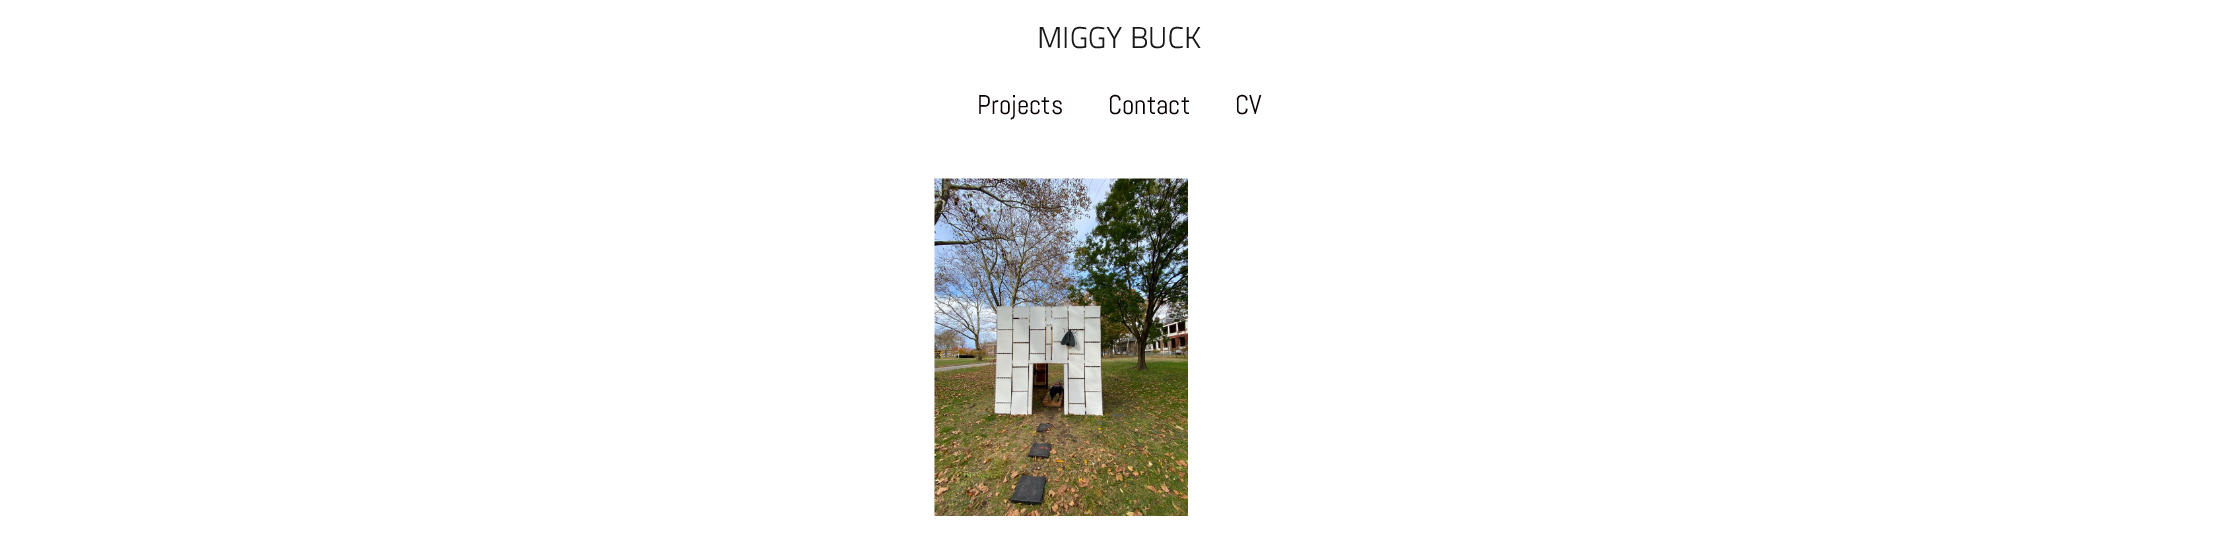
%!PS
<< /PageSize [2237 536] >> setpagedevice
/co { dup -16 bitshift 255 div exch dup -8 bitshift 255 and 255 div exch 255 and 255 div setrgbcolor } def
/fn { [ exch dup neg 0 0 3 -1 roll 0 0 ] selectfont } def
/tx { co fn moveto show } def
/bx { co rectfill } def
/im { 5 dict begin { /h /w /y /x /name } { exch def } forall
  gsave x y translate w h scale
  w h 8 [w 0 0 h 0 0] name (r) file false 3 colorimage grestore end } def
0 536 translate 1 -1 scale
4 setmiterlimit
0 0 2237 536 16#FFFFFF bx
(media/1.raw) 934 178 254 338 im
(MIGGY BUCK) 1037 48 /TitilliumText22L-Light 30 16#181818 tx
(Projects) 977 114 /Abel-Regular 27 16#080000 tx
(Contact) 1108 114 /Abel-Regular 27 16#080000 tx
(CV) 1235 114 /Abel-Regular 27 16#080000 tx
showpage
